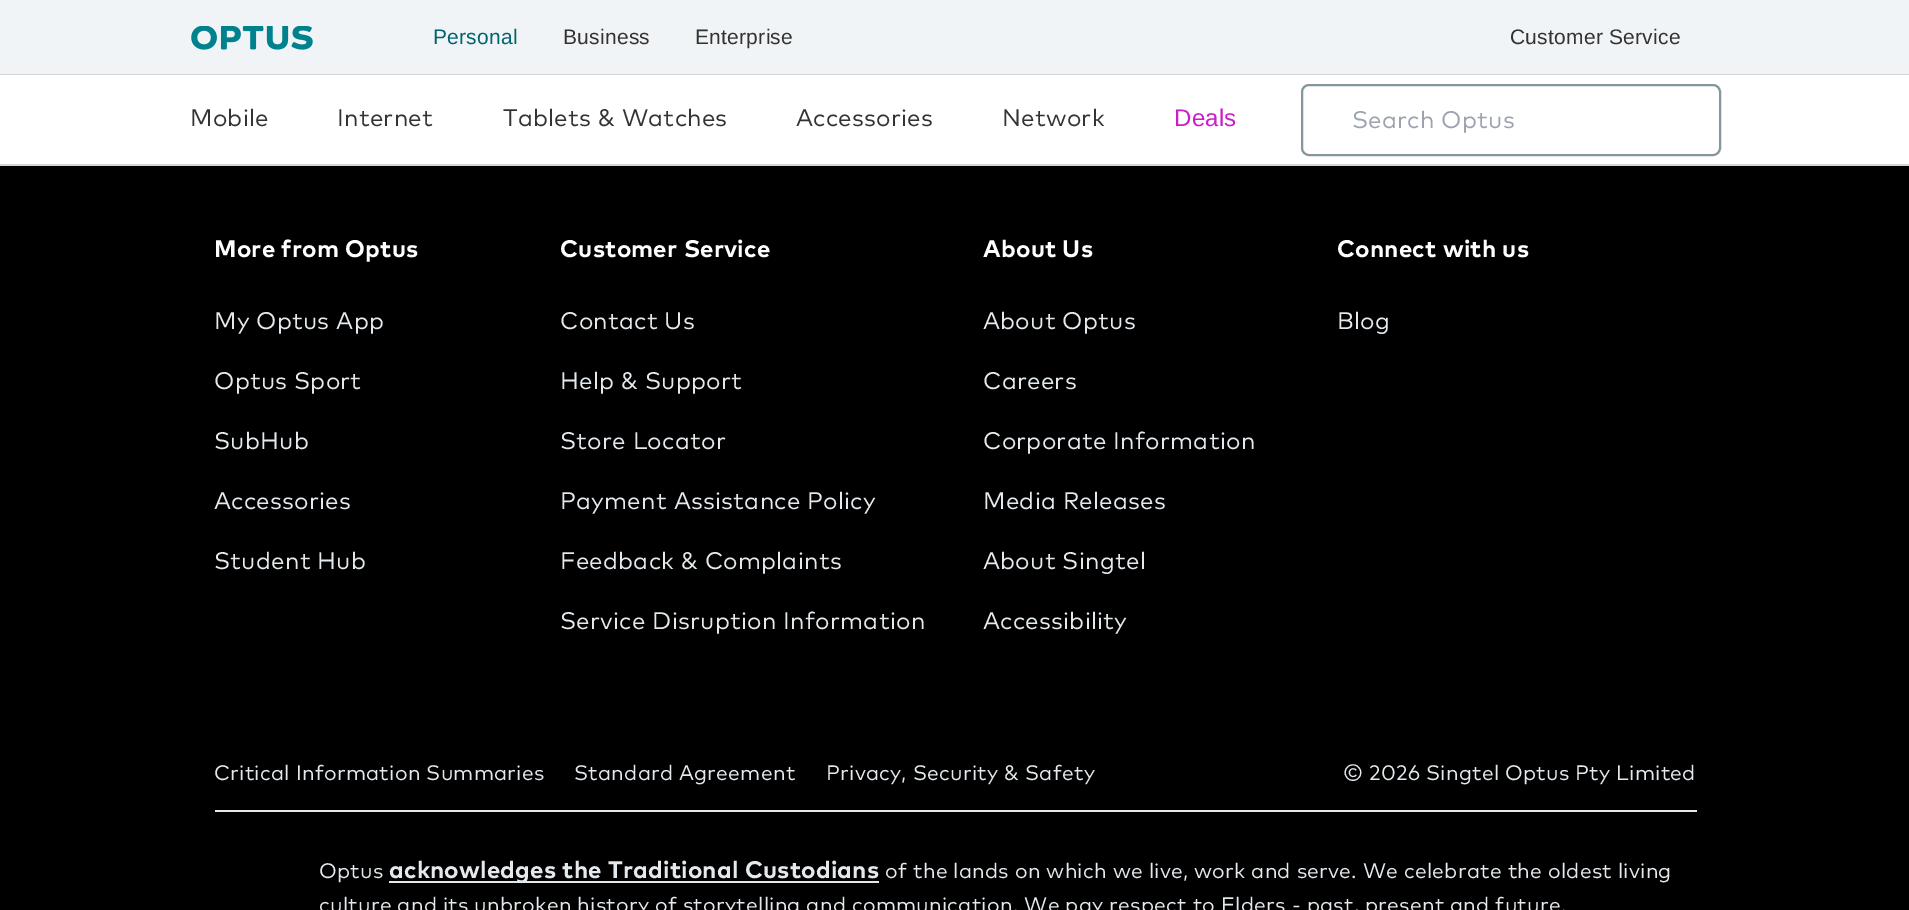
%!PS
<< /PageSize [1909 910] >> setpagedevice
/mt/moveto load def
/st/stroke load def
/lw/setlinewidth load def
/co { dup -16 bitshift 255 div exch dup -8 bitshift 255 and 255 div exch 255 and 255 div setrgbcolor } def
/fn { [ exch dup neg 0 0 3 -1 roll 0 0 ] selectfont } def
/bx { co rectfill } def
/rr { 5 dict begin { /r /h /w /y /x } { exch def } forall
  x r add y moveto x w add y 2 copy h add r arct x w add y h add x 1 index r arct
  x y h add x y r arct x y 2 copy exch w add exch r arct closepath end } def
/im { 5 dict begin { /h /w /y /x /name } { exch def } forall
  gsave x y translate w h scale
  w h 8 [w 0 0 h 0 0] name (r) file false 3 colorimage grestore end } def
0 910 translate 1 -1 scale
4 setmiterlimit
0 0 1909 910 16#000000 bx
0 0 1909 74 16#F1F4F6 bx
0 74 1909 1 16#D1D7DA bx
(media/1.raw) 191 26 122 24 im
0 75 1909 89 16#FFFFFF bx
0 164 1909 2 16#D1D7DA bx
16#85969E co
2 lw
1302 85 418 70 7 rr st
215 810 1482 2 16#E3E9EC bx
389 881 490 2 16#E3E9EC bx
/LiberationSans-Regular 21 fn
16#00646F co
433 44 mt .24 0 (Personal) ashow
16#333333 co
563 44 mt .24 0 (Business) ashow
695 44 mt .24 0 (Enterprise) ashow
1510 44 mt .24 0 (Customer Service) ashow
/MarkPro-Regular 24 fn
190 126 mt .24 0 (Mobile) ashow
337 126 mt .24 0 (Internet) ashow
503 126 mt .24 0 (Tablets & Watches) ashow
796 126 mt .24 0 (Accessories) ashow
1002 126 mt .24 0 (Network) ashow
/LiberationSans-Regular 24 fn
16#CB1ECB co
1174 126 mt .24 0 (Deals) ashow
/MarkPro-Regular 24 fn
16#9CA3AF co
1352 128 mt .24 0 (Search Optus) ashow
/MarkPro-Bold 24 fn
16#FFFFFF co
214 257 mt .24 0 (More from Optus) ashow
/MarkPro-Regular 24 fn
16#E3E9EC co
214 329 mt .24 0 (My Optus App) ashow
214 389 mt .24 0 (Optus Sport) ashow
214 449 mt .24 0 (SubHub) ashow
214 509 mt .24 0 (Accessories) ashow
214 569 mt .24 0 (Student Hub) ashow
/MarkPro-Bold 24 fn
16#FFFFFF co
560 257 mt .24 0 (Customer Service) ashow
/MarkPro-Regular 24 fn
16#E3E9EC co
560 329 mt .24 0 (Contact Us) ashow
560 389 mt .24 0 (Help & Support) ashow
560 449 mt .24 0 (Store Locator) ashow
560 509 mt .24 0 (Payment Assistance Policy) ashow
560 569 mt .24 0 (Feedback & Complaints) ashow
560 629 mt .24 0 (Service Disruption Information) ashow
/MarkPro-Bold 24 fn
16#FFFFFF co
983 257 mt .24 0 (About Us) ashow
/MarkPro-Regular 24 fn
16#E3E9EC co
983 329 mt .24 0 (About Optus) ashow
983 389 mt .24 0 (Careers) ashow
983 449 mt .24 0 (Corporate Information) ashow
983 509 mt .24 0 (Media Releases) ashow
983 569 mt .24 0 (About Singtel) ashow
983 629 mt .24 0 (Accessibility) ashow
/MarkPro-Bold 24 fn
16#FFFFFF co
1337 257 mt .24 0 (Connect with us) ashow
/MarkPro-Regular 24 fn
16#E3E9EC co
1337 329 mt .24 0 (Blog) ashow
/MarkPro-Regular 21 fn
214 780 mt .24 0 (Critical Information Summaries) ashow
574 780 mt .24 0 (Standard Agreement) ashow
826 780 mt .24 0 (Privacy, Security & Safety) ashow
1343 780 mt .24 0 (© 2026 Singtel Optus Pty Limited) ashow
319 878 mt .24 0 (Optus) ashow
/MarkPro-Bold 24 fn
389 878 mt .24 0 (acknowledges the Traditional Custodians) ashow
/MarkPro-Regular 21 fn
885 878 mt .24 0 (of the lands on which we live, work and serve. We celebrate the oldest living) ashow
319 912 mt .24 0 (culture and its unbroken history of storytelling and communication. We pay respect to Elders - past, present and future.) ashow
showpage
